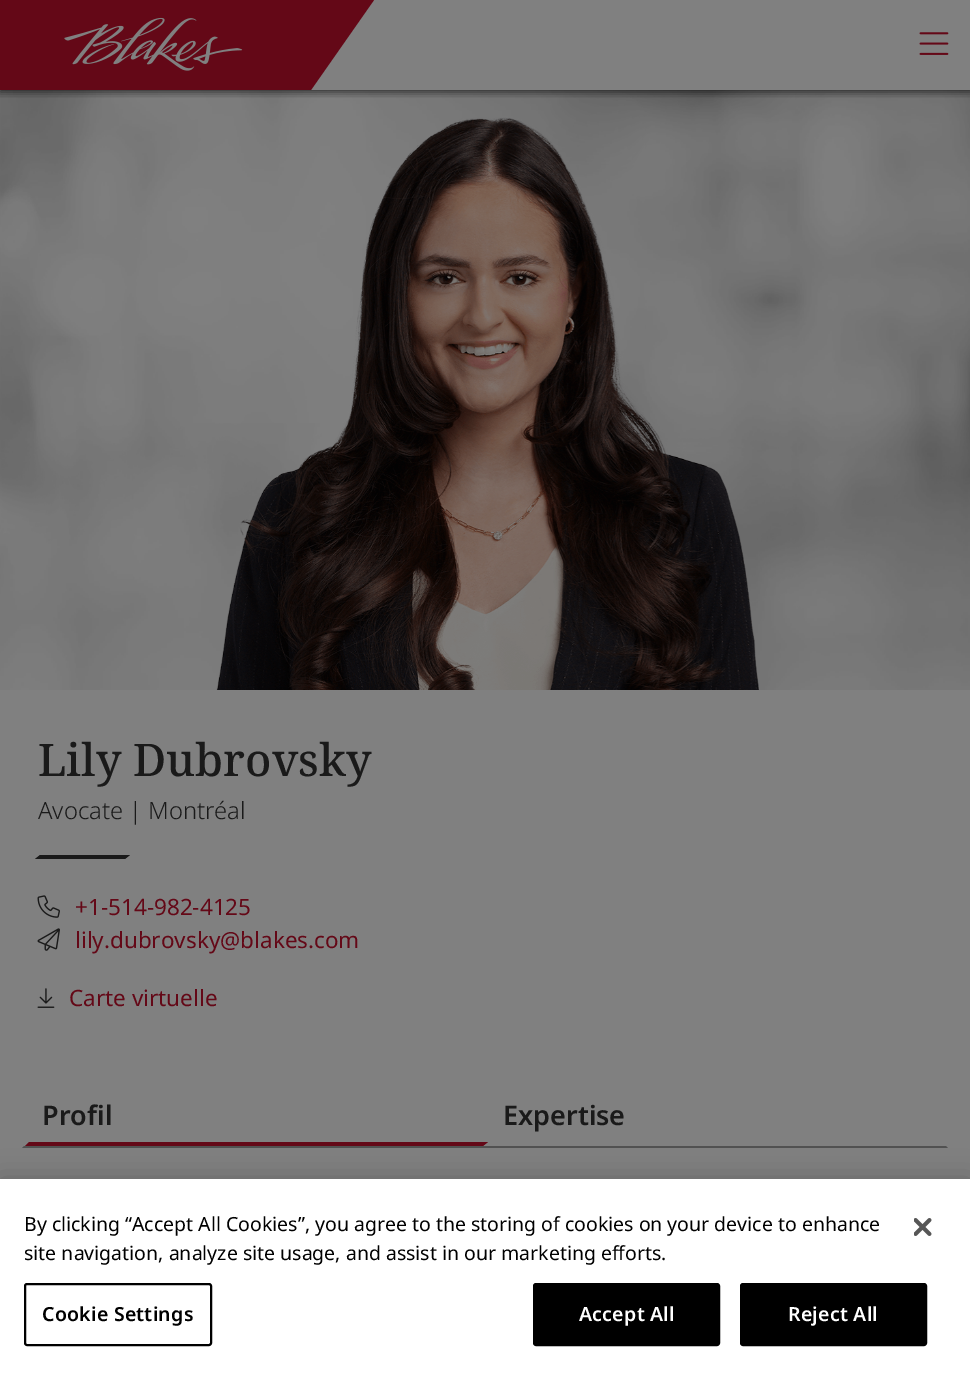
%!PS
<< /PageSize [970 1376] /PageUsesTransparency true >> setpagedevice
/mt/moveto load def
/li/lineto load def
/cp/closepath load def
/fl/fill load def
/st/stroke load def
/gs/gsave load def
/gr/grestore load def
/lw/setlinewidth load def
/co { dup -16 bitshift 255 div exch dup -8 bitshift 255 and 255 div exch 255 and 255 div setrgbcolor } def
/fn { [ exch dup neg 0 0 3 -1 roll 0 0 ] selectfont } def
/tx { co fn moveto show } def
/bx { co rectfill } def
/al { dup .setfillconstantalpha .setstrokeconstantalpha } def
/rr { 5 dict begin { /r /h /w /y /x } { exch def } forall
  x r add y moveto x w add y 2 copy h add r arct x w add y h add x 1 index r arct
  x y h add x y r arct x y 2 copy exch w add exch r arct closepath end } def
/sh { 12 dict begin { /a /b /q /h /w /y /x } { exch def } forall gsave /was 0 def
  9 -2 -9 { dup b mul 4 div /e exch def 1 sub .425 mul 2.718 exch exp 1 add a .99 .min exch div /now exch def
    1 1 now sub 1 was sub div sub al /was now def
    w h .min e 2 mul add 0 gt { x e sub y e sub w e 2 mul add h e 2 mul add
      q e add b .6 mul add w h .min 2 div e add .min 0 .max rr fill } if } for grestore end } def
/im { 5 dict begin { /h /w /y /x /name } { exch def } forall
  gsave x y translate w h scale
  w h 8 [w 0 0 h 0 0] name (r) file false 3 colorimage grestore end } def
0 .pushpdf14devicefilter
0 1376 translate 1 -1 scale
4 setmiterlimit
0 0 970 1376 16#808080 bx
gs 0 90 mt 970 90 li 970 237 li 0 237 li cp clip newpath
<< /ShadingType 2 /ColorSpace /DeviceRGB /Coords [485 90 485 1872] /Extend [true true] /Function << /FunctionType 3 /Domain [0 1] /Functions [<< /FunctionType 2 /Domain [0 1] /C0 [.471 .475 .478] /C1 [.502 .502 .502] /N 1 >> << /FunctionType 2 /Domain [0 1] /C0 [.502 .502 .502] /C1 [.502 .502 .502] /N 1 >>] /Bounds [.12] /Encode [0 1 0 1] >> >> shfill gr
(media/3.raw) 0 90 970 600 im
gs
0 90 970 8 rectclip
16#000000 co
0 2 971 90 0 4 .35 sh
0 2 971 90 0 4 .35 sh
gr
0 0 298 90 16#640817 bx
298 0 mt 374 0 li 311 90 li 235 90 li cp fl
(media/1.raw) 64 17 179 54 im
(media/2.raw) 919 32 30 23 im
(media/4.raw) 216 117 544 573 im
16#1A1A1A co
40 855 mt 130 855 li 125 859 li 35 859 li cp fl
(media/5.raw) 37 895 23 23 im
(media/6.raw) 37 928 23 23 im
(media/7.raw) 37 988 18 20 im
16#515151 co
948 1148 mt 22 1148 li 24 1146 li 946 1146 li cp fl
16#640817 co
29 1142 mt 488 1142 li 483 1146 li 25 1146 li cp fl
16#000000 co
0 1179 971 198 0 13.5 .2 sh
0 1179 970 197 16#FFFFFF bx
16#000000 co
2 lw
25 1284 186 61 2 rr st
534 1284 185 61 2 rr gs fl gr
st
741 1284 185 61 2 rr gs fl gr
st
(media/8.raw) 914 1218 18 18 im
(Lily Dubrovsky) 38 776 /NotoSerif-Medium 45 16#1A1A1A tx
(Avocate | Montréal) 38 819 /NotoSans-Light 23.75 16#1A1A1A tx
(+1-514-982-4125) 75 915 /NotoSans-Regular 22.5 16#640817 tx
(lily.dubrovsky@blakes.com) 75 948 /NotoSans-Regular 22.5 16#640817 tx
(Carte virtuelle) 69 1006 /NotoSans-Regular 22.5 16#640817 tx
(Profil) 42 1125 /NotoSans-SemiBold 27 16#1A1A1A tx
(Expertise) 503 1125 /NotoSans-SemiBold 27 16#1A1A1A tx
(By clicking “Accept All Cookies”, you agree to the storing of cookies on your device to enhance) 24 1231 /NotoSans-Regular 19.5 16#000000 tx
(site navigation, analyze site usage, and assist in our marketing efforts.) 24 1260 /NotoSans-Regular 19.5 16#000000 tx
/NotoSans-SemiBold 19.5 fn
42 1321 mt .25 0 (Cookie Settings) ashow
16#FFFFFF co
579 1321 mt .25 0 (Accept All) ashow
788 1321 mt .25 0 (Reject All) ashow
.poppdf14devicefilter showpage
